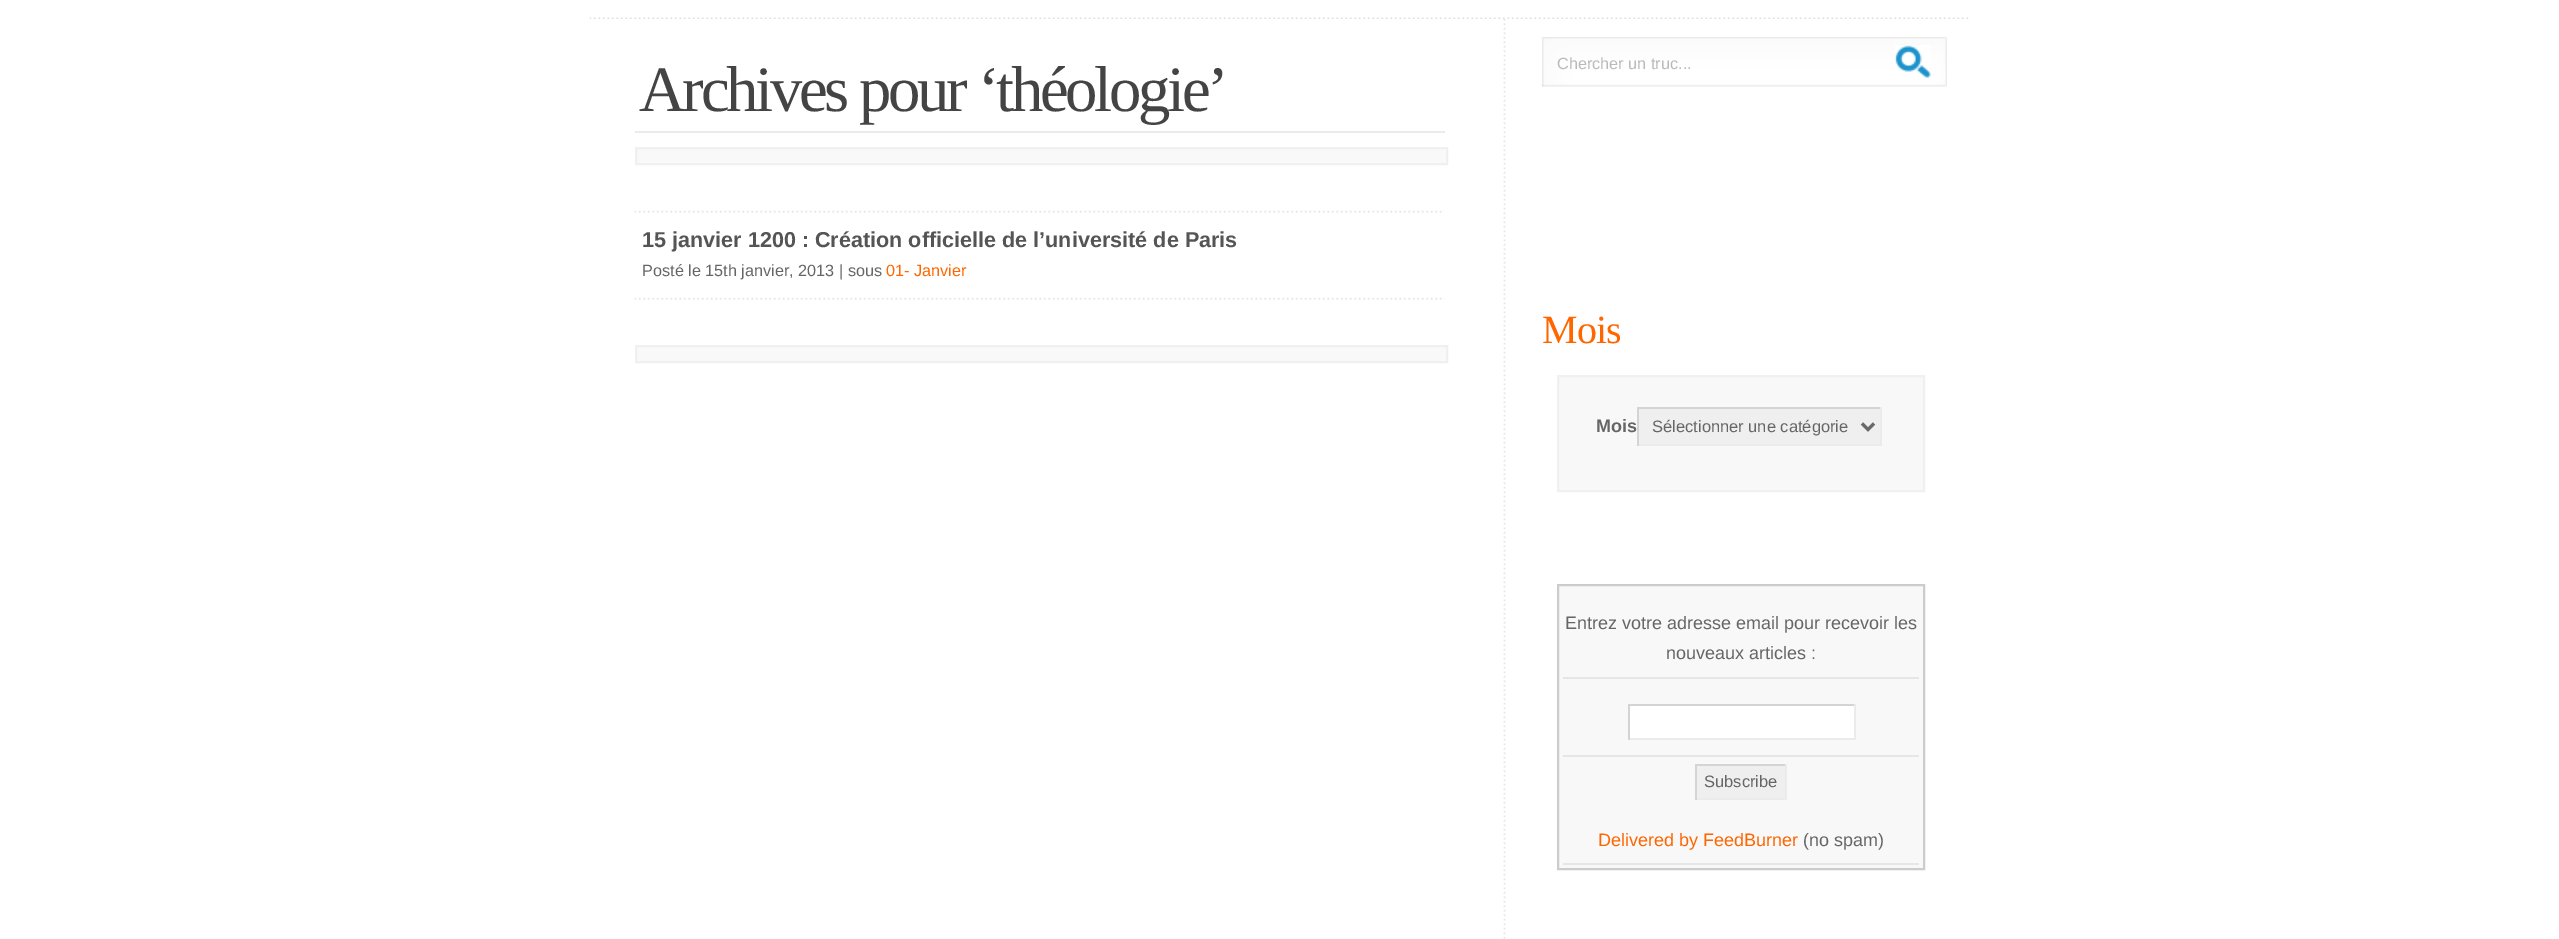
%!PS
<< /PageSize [2559 939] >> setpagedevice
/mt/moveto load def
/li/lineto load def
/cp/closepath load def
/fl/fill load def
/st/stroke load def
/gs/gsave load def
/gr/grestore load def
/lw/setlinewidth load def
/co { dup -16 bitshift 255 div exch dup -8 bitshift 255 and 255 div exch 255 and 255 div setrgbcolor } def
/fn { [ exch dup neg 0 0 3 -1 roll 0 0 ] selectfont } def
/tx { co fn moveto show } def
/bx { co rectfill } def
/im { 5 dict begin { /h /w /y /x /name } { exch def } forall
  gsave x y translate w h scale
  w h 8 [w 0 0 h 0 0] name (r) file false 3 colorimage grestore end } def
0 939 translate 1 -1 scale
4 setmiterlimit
0 0 2559 939 16#FFFFFF bx
(media/1.raw) 1503 14 3 925 im
(media/2.raw) 589 14 1380 5 im
635 131 810 2 16#EBEBEB bx
16#F9F9F9 co
636 148 mt 1447 148 li 1447 164 li 636 164 li cp gs fl gr
16#F0F0F0 co
2 lw
st
(media/3.raw) 634 210 811 3 im
(media/3.raw) 634 297 811 3 im
16#F9F9F9 co
636 346 mt 1447 346 li 1447 362 li 636 362 li cp gs fl gr
16#F0F0F0 co
st
(media/4.raw) 1542 37 405 50 im
(media/5.raw) 1895 45 36 33 im
16#F8F8F8 co
1558 376 mt 1924 376 li 1924 491 li 1558 491 li cp gs fl gr
16#F0F0F0 co
st
1639 409 241 35 16#EFEFEF bx
1637 407 244 2 16#D4D4D4 bx
1880 407 2 39 16#EBEBEB bx
1637 444 244 2 16#EBEBEB bx
1637 407 2 39 16#D4D4D4 bx
16#6A6969 co
3 lw
1862 423.5 mt 1868 429.5 li 1874 423.5 li st
16#F8F8F8 co
1558 585 mt 1924 585 li 1924 869 li 1558 869 li cp gs fl gr
16#CCCCCC co
2 lw
st
1563 677 356 2 16#E6E6E6 bx
1563 755 356 2 16#E6E6E6 bx
1630 706 224 32 16#FFFFFF bx
1628 704 228 2 16#D4D4D4 bx
1854 704 2 36 16#EBEBEB bx
1628 738 228 2 16#EBEBEB bx
1628 704 2 36 16#D4D4D4 bx
1697 766 88 32 16#EFEFEF bx
1695 764 92 2 16#D4D4D4 bx
1785 764 2 36 16#EBEBEB bx
1695 798 92 2 16#EBEBEB bx
1695 764 2 36 16#D4D4D4 bx
1563 863 356 2 16#E6E6E6 bx
/LiberationSerif-Regular 64.75 fn
16#444444 co
639 111 mt -3.3 0 (Archives pour ‘théologie’) ashow
(15 janvier 1200 : Création officielle de l’université de Paris) 642 247 /LiberationSans-Bold 21.6 16#555555 tx
(Posté le 15th janvier, 2013 | sous) 642 276 /LiberationSans-Regular 16.25 16#666666 tx
(01- Janvier) 886 276 /LiberationSans-Regular 16.25 16#FF6600 tx
(Chercher un truc...) 1557 69 /LiberationSans-Regular 16.25 16#BABABA tx
/LiberationSerif-Regular 40 fn
16#FF6600 co
1542 343 mt -1 0 (Mois) ashow
(Mois) 1596 432 /LiberationSans-Bold 18 16#666666 tx
(Sélectionner une catégorie) 1652 432 /LiberationSans-Regular 16.5 16#666666 tx
(Entrez votre adresse email pour recevoir les) 1565 629 /LiberationSans-Regular 18 16#666666 tx
(nouveaux articles :) 1666 659 /LiberationSans-Regular 18 16#666666 tx
(Subscribe) 1704 787 /LiberationSans-Regular 16.5 16#666666 tx
(Delivered by FeedBurner) 1598 846 /LiberationSans-Regular 18 16#FF6600 tx
(\(no spam\)) 1803 846 /LiberationSans-Regular 18 16#666666 tx
showpage
